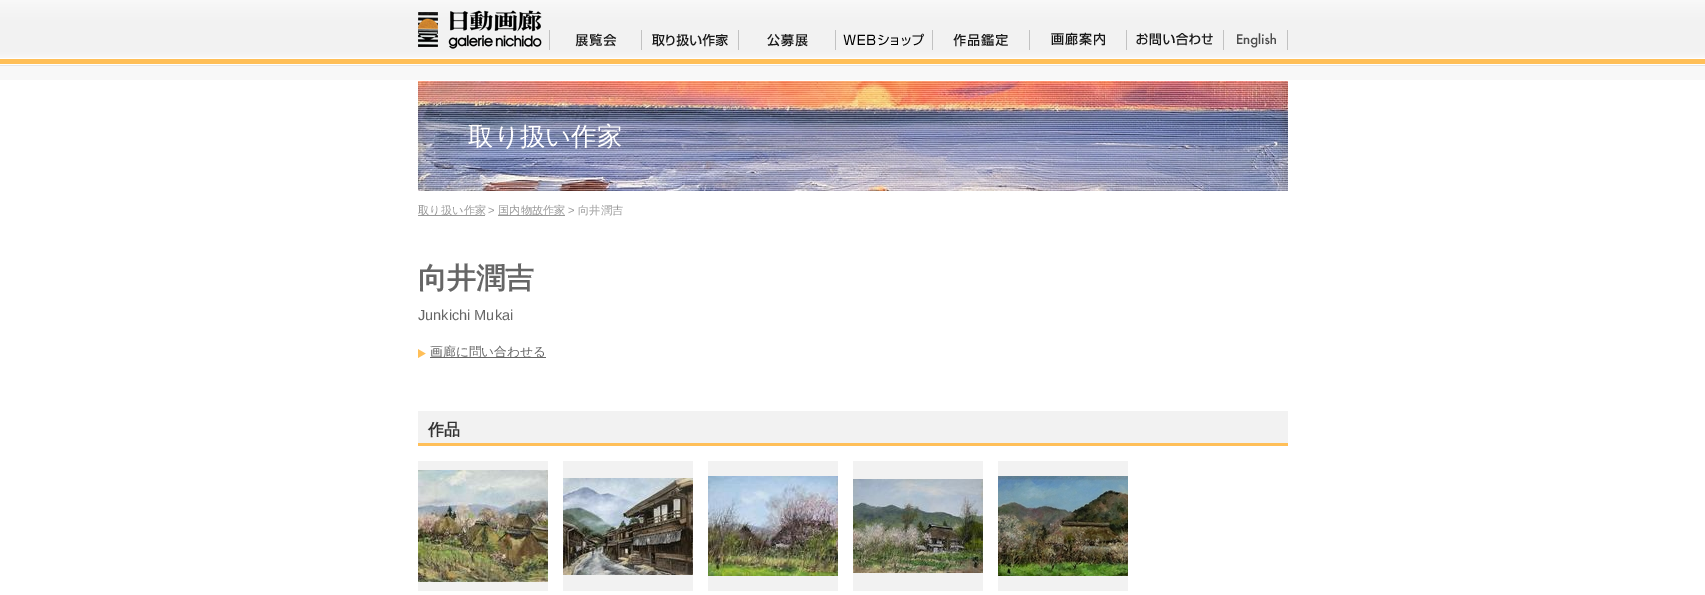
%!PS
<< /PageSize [1705 595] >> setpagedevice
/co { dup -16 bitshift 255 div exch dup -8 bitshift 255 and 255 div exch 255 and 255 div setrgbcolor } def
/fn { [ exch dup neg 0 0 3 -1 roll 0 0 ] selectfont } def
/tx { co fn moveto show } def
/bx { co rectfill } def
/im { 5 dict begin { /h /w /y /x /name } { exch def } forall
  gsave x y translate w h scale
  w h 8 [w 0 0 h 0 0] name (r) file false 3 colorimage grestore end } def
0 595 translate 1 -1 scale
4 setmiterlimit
0 0 1705 595 16#FFFFFF bx
(media/1.raw) 0 0 1705 66 im
(media/2.raw) 418 10 124 39 im
549 30 1 20 16#C2C2C2 bx
641 30 1 20 16#C2C2C2 bx
(media/3.raw) 575 33 42 14 im
738 30 1 20 16#C2C2C2 bx
(media/4.raw) 652 34 76 13 im
835 30 1 20 16#C2C2C2 bx
(media/5.raw) 767 34 41 13 im
932 30 1 20 16#C2C2C2 bx
(media/6.raw) 843 33 81 13 im
1029 30 1 20 16#C2C2C2 bx
(media/7.raw) 953 34 55 13 im
1126 30 1 20 16#C2C2C2 bx
(media/8.raw) 1051 32 54 14 im
1223 30 1 20 16#C2C2C2 bx
(media/9.raw) 1136 33 77 13 im
1287 30 1 20 16#C2C2C2 bx
(media/10.raw) 1237 33 39 15 im
0 66 1705 14 16#F8F8F8 bx
(media/11.raw) 418 81 870 110 im
418 215 67 1 16#999999 bx
498 215 67 1 16#999999 bx
(media/12.raw) 418 349 8 9 im
430 357 116 1 16#666666 bx
418 411 870 32 16#F2F2F2 bx
418 443 870 3 16#FFBF58 bx
418 461 130 130 16#F2F2F2 bx
(media/13.raw) 418 470 130 112 im
563 461 130 130 16#F2F2F2 bx
(media/14.raw) 563 478 130 97 im
708 461 130 130 16#F2F2F2 bx
(media/15.raw) 708 476 130 100 im
853 461 130 130 16#F2F2F2 bx
(media/16.raw) 853 479 130 94 im
998 461 130 130 16#F2F2F2 bx
(media/17.raw) 998 476 130 100 im
(取り扱い作家) 468 145 /WenQuanYiZenHei-Medium 25.5 16#FFFFFF tx
(取り扱い作家) 418 214 /WenQuanYiZenHei-Medium 11.25 16#999999 tx
(>) 488 214 /LiberationSans-Regular 11.25 16#999999 tx
(国内物故作家) 498 214 /WenQuanYiZenHei-Medium 11.25 16#999999 tx
(>) 568 214 /LiberationSans-Regular 11.25 16#999999 tx
(向井潤吉) 578 214 /WenQuanYiZenHei-Medium 11.25 16#999999 tx
(向井潤吉) 418 288 /WenQuanYiZenHei-Bold 29 16#666666 tx
(Junkichi Mukai) 418 320 /LiberationSans-Regular 14.5 16#666666 tx
(画廊に問い合わせる) 430 356 /WenQuanYiZenHei-Medium 12.75 16#666666 tx
(作品) 428 435 /WenQuanYiZenHei-Bold 16 16#333333 tx
showpage
